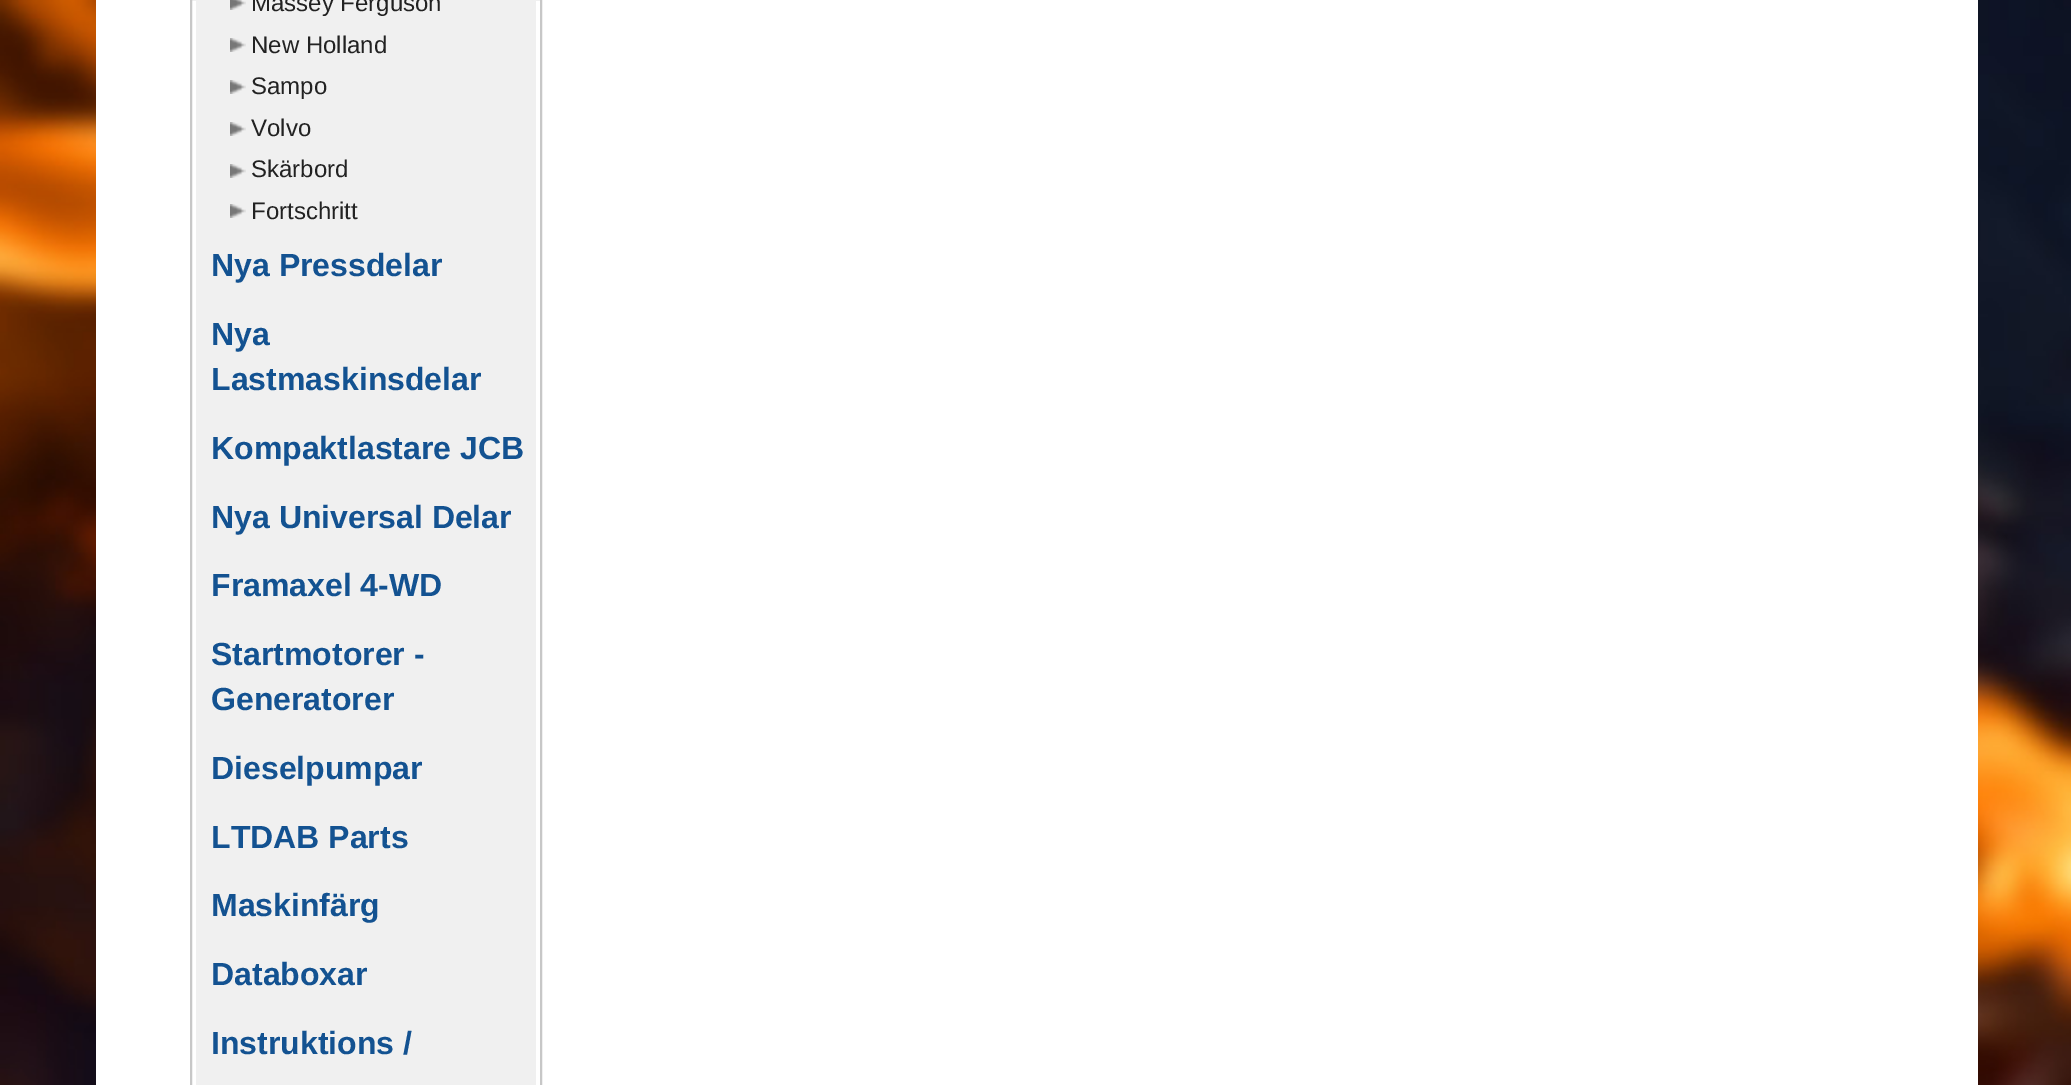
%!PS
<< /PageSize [2071 1085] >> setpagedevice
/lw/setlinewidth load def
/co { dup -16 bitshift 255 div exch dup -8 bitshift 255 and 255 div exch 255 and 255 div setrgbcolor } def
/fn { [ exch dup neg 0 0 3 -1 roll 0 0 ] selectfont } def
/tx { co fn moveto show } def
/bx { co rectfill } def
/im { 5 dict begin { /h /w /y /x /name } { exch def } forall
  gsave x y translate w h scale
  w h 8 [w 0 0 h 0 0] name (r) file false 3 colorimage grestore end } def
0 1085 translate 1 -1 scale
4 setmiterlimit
0 0 2071 1085 16#FFFFFF bx
(media/1.raw) 0 0 2071 1085 im
96 0 1882 1085 16#FFFFFF bx
16#C7C7C7 co
2 lw
191 -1 350 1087 rectstroke
196 0 340 1085 16#F0F0F0 bx
(media/2.raw) 230 0 16 10 im
(media/3.raw) 230 38 16 14 im
(media/3.raw) 230 80 16 14 im
(media/3.raw) 230 122 16 14 im
(media/3.raw) 230 164 16 14 im
(media/3.raw) 230 204 16 14 im
(Massey Ferguson) 251 11 /LiberationSans-Regular 24 16#222222 tx
(New Holland) 251 53 /LiberationSans-Regular 24 16#222222 tx
(Sampo) 251 94 /LiberationSans-Regular 24 16#222222 tx
(Volvo) 251 136 /LiberationSans-Regular 24 16#222222 tx
(Skärbord) 251 177 /LiberationSans-Regular 24 16#222222 tx
(Fortschritt) 251 219 /LiberationSans-Regular 24 16#222222 tx
(Nya Pressdelar) 211 276 /LiberationSans-Bold 32 16#135291 tx
(Nya) 211 345 /LiberationSans-Bold 32 16#135291 tx
(Lastmaskinsdelar) 211 390 /LiberationSans-Bold 32 16#135291 tx
(Kompaktlastare JCB) 211 459 /LiberationSans-Bold 32 16#135291 tx
(Nya Universal Delar) 211 528 /LiberationSans-Bold 32 16#135291 tx
(Framaxel 4-WD) 211 596 /LiberationSans-Bold 32 16#135291 tx
(Startmotorer -) 211 665 /LiberationSans-Bold 32 16#135291 tx
(Generatorer) 211 710 /LiberationSans-Bold 32 16#135291 tx
(Dieselpumpar) 211 779 /LiberationSans-Bold 32 16#135291 tx
(LTDAB Parts) 211 848 /LiberationSans-Bold 32 16#135291 tx
(Maskinfärg) 211 916 /LiberationSans-Bold 32 16#135291 tx
(Databoxar) 211 985 /LiberationSans-Bold 32 16#135291 tx
(Instruktions /) 211 1054 /LiberationSans-Bold 32 16#135291 tx
showpage
